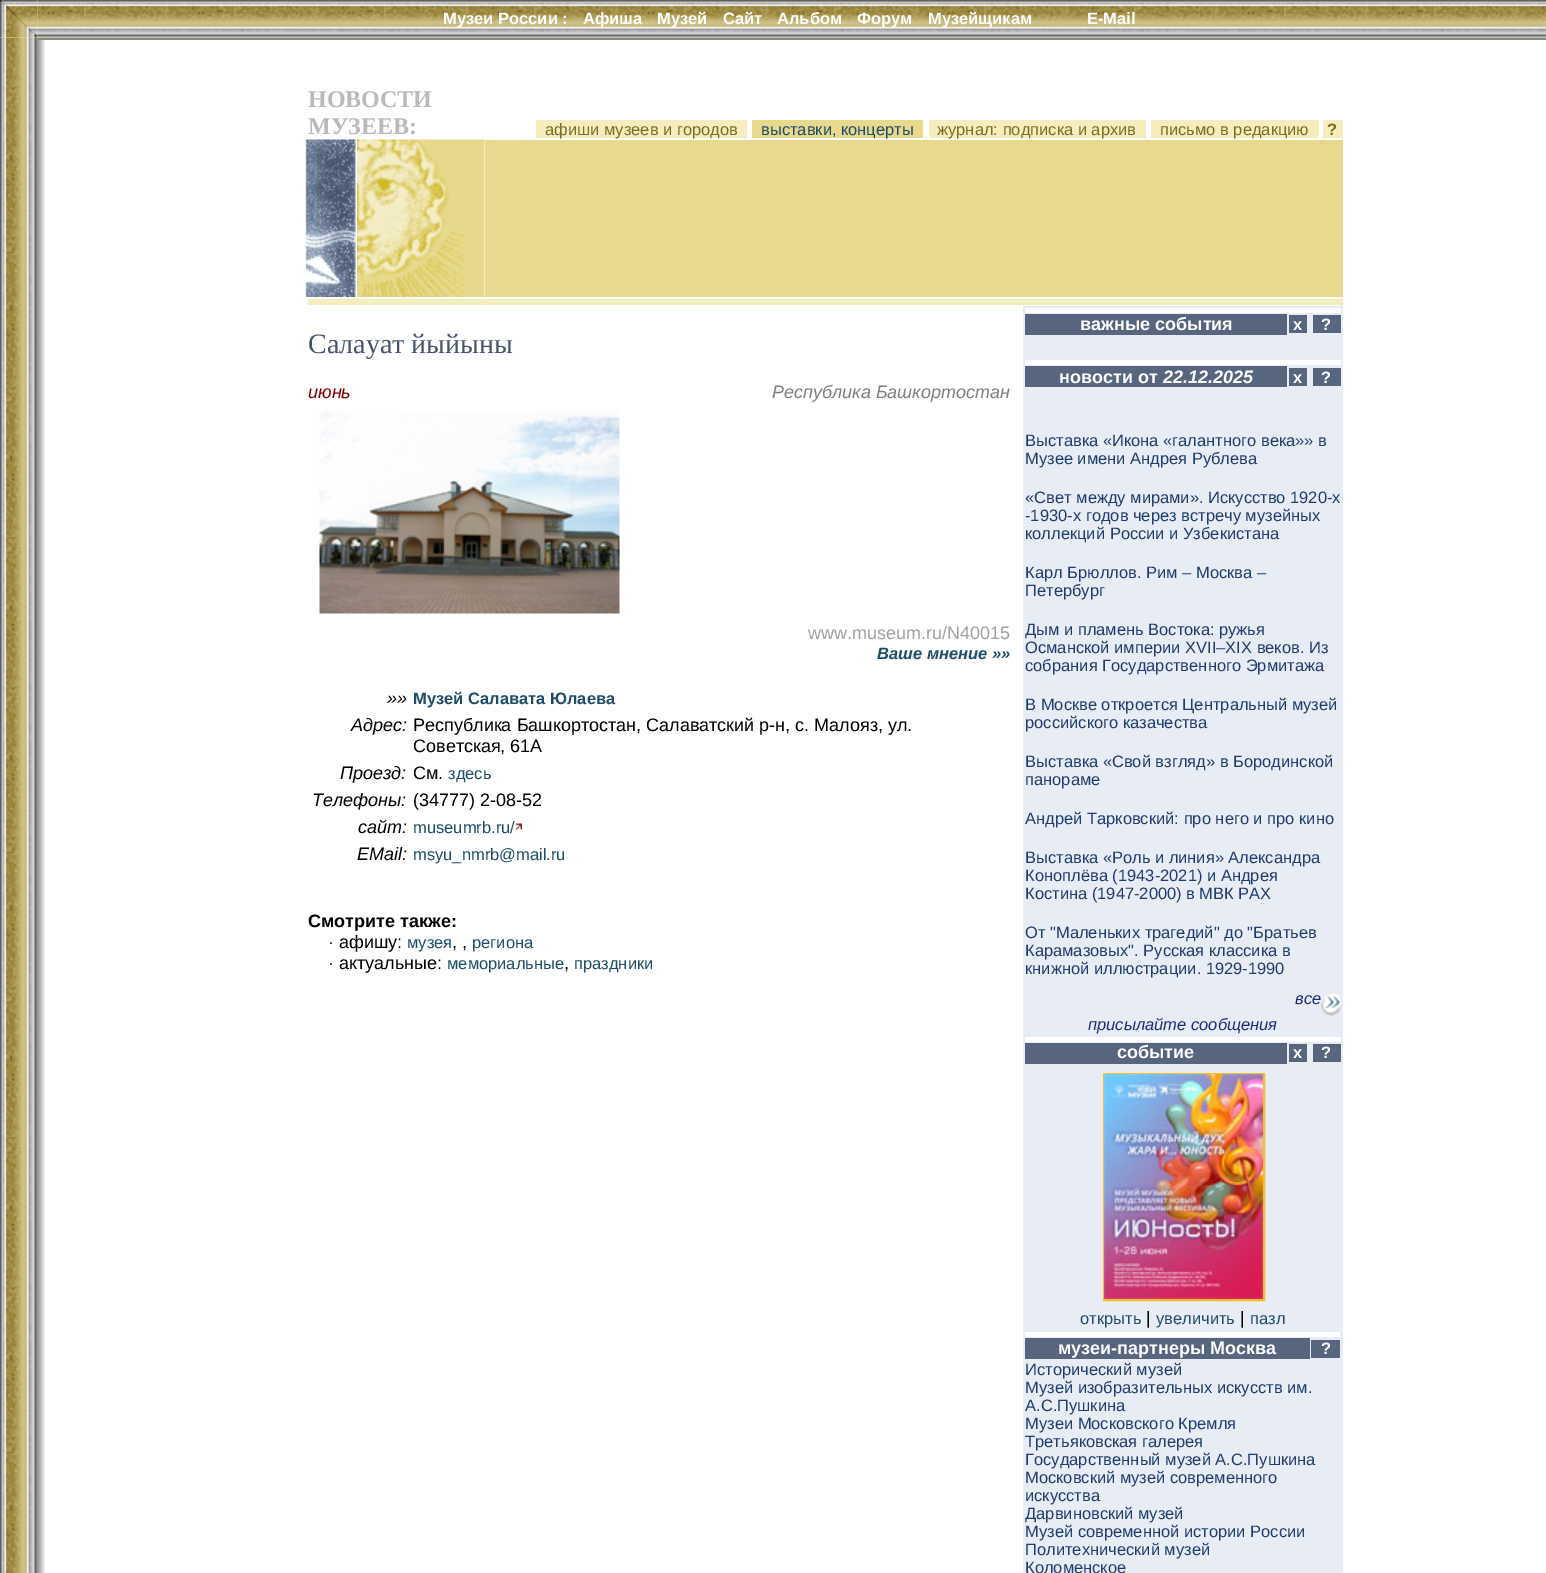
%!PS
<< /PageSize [1546 1573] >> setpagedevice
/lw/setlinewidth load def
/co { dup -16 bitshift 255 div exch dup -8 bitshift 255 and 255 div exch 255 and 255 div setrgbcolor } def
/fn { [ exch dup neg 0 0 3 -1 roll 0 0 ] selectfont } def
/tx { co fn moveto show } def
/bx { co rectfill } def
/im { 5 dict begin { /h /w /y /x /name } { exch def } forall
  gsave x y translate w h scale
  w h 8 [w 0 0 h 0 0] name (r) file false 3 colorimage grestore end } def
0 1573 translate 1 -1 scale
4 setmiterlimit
0 0 1546 1573 16#FFFFFF bx
(media/1.raw) 0 38 45 1535 im
0 0 1546 38 16#E7DA8E bx
(media/2.raw) 0 0 38 38 im
(media/3.raw) 37 0 1509 38 im
38 38 1508 2 16#888888 bx
536 120 211 18 16#F5EDBD bx
752 120 171 18 16#E7DA8E bx
929 120 217 18 16#F5EDBD bx
1151 120 168 18 16#F5EDBD bx
1323 120 20 18 16#F5EDBD bx
(media/4.raw) 305 139 51 158 im
(media/5.raw) 357 139 128 158 im
485 140 858 157 16#E7DA8E bx
308 299 1035 6 16#F5EDBD bx
(media/6.raw) 319 411 301 203 im
(media/7.raw) 515 823 7 7 im
1023 306 320 1267 16#E8EDF5 bx
1025 308 316 5 16#FFFFFF bx
1025 314 262 21 16#58657E bx
1289 315 18 18 16#58657E bx
1313 315 28 18 16#58657E bx
1025 360 316 5 16#FFFFFF bx
1025 366 262 21 16#58657E bx
1289 368 18 18 16#58657E bx
1313 368 28 18 16#58657E bx
(media/8.raw) 1321 993 20 23 im
1025 1037 316 5 16#FFFFFF bx
1025 1043 262 21 16#58657E bx
1289 1044 18 18 16#58657E bx
1313 1044 28 18 16#58657E bx
16#F1C025 co
2 lw
1104 1074 160 226 rectstroke
(media/9.raw) 1104 1074 159 225 im
1025 1332 315 5 16#FFFFFF bx
1025 1338 285 21 16#58657E bx
1311 1340 29 18 16#58657E bx
(Музеи России :) 443 24 /LiberationSans-Bold 16.5 16#FFFFFF tx
(Афиша) 583 24 /LiberationSans-Bold 16.5 16#FFFFFF tx
(Музей) 657 24 /LiberationSans-Bold 16.5 16#FFFFFF tx
(Сайт) 723 24 /LiberationSans-Bold 16.5 16#FFFFFF tx
(Альбом) 777 24 /LiberationSans-Bold 16.5 16#FFFFFF tx
(Форум) 857 24 /LiberationSans-Bold 16.5 16#FFFFFF tx
(Музейщикам) 928 24 /LiberationSans-Bold 16.5 16#FFFFFF tx
(E-Mail) 1087 24 /LiberationSans-Bold 16.5 16#FFFFFF tx
(НОВОСТИ) 308 107 /LiberationSerif-Bold 24 16#BABABA tx
(МУЗЕЕВ:) 308 134 /LiberationSerif-Bold 24 16#BABABA tx
(афиши музеев и городов) 545 135 /LiberationSans-Regular 16.5 16#796E24 tx
(выставки, концерты) 761 135 /LiberationSans-Regular 16.5 16#1E4C6A tx
(журнал: подписка и архив) 937 135 /LiberationSans-Regular 16.5 16#796E24 tx
(письмо в редакцию) 1160 135 /LiberationSans-Regular 16.5 16#796E24 tx
(?) 1327 135 /LiberationSans-Bold 16.5 16#796E24 tx
(Салауат йыйыны) 308 353 /LiberationSerif-Regular 28 16#47526C tx
(июнь) 308 398 /LiberationSans-Italic 18 16#800000 tx
(Республика Башкортостан) 772 398 /LiberationSans-Italic 18 16#808080 tx
(www.museum.ru/N40015) 808 639 /LiberationSans-Regular 18 16#A0A0A0 tx
(Ваше мнение »») 877 659 /LiberationSans-BoldItalic 16.5 16#1E4C6A tx
(»») 387 704 /LiberationSans-Italic 18 16#000000 tx
(Музей Салавата Юлаева) 413 704 /LiberationSans-Bold 16.5 16#1E4C6A tx
(Адрес:) 351 731 /LiberationSans-Italic 18 16#000000 tx
(Республика Башкортостан, Салаватский р-н, с. Малояз, ул.) 413 731 /LiberationSans-Regular 18 16#000000 tx
(Советская, 61A) 413 752 /LiberationSans-Regular 18 16#000000 tx
(Проезд:) 340 779 /LiberationSans-Italic 18 16#000000 tx
(См.) 413 779 /LiberationSans-Regular 18 16#000000 tx
(здесь) 448 779 /LiberationSans-Regular 16.5 16#1E4C6A tx
(Телефоны:) 312 806 /LiberationSans-Italic 18 16#000000 tx
(\(34777\) 2-08-52) 413 806 /LiberationSans-Regular 18 16#000000 tx
(сайт:) 358 833 /LiberationSans-Italic 18 16#000000 tx
(museumrb.ru/) 413 833 /LiberationSans-Regular 16.5 16#1E4C6A tx
(EMail:) 357 860 /LiberationSans-Italic 18 16#000000 tx
(msyu_nmrb@mail.ru) 413 860 /LiberationSans-Regular 16.5 16#1E4C6A tx
(Смотрите также:) 308 927 /LiberationSans-Bold 18 16#000000 tx
(· афишу:) 328 948 /LiberationSans-Regular 18 16#000000 tx
(музея) 407 948 /LiberationSans-Regular 16.5 16#1E4C6A tx
(, ,) 452 948 /LiberationSans-Regular 18 16#000000 tx
(региона) 472 948 /LiberationSans-Regular 16.5 16#1E4C6A tx
(· актуальные:) 328 969 /LiberationSans-Regular 18 16#000000 tx
(мемориальные) 447 969 /LiberationSans-Regular 16.5 16#1E4C6A tx
(,) 564 969 /LiberationSans-Regular 18 16#000000 tx
(праздники) 574 969 /LiberationSans-Regular 16.5 16#1E4C6A tx
(важные события) 1080 330 /LiberationSans-Bold 18 16#FFFFFF tx
(x) 1293 330 /LiberationSans-Bold 16.5 16#FFFFFF tx
(?) 1321 330 /LiberationSans-Bold 16.5 16#FFFFFF tx
(новости от) 1059 383 /LiberationSans-Bold 18 16#FFFFFF tx
(22.12.2025) 1163 383 /LiberationSans-BoldItalic 18 16#FFFFFF tx
(x) 1293 383 /LiberationSans-Bold 16.5 16#FFFFFF tx
(?) 1321 383 /LiberationSans-Bold 16.5 16#FFFFFF tx
(Выставка «Икона «галантного века»» в) 1025 446 /LiberationSans-Regular 16.5 16#203C6F tx
(Музее имени Андрея Рублева) 1025 464 /LiberationSans-Regular 16.5 16#203C6F tx
(«Свет между мирами». Искусство 1920-х) 1025 503 /LiberationSans-Regular 16.5 16#203C6F tx
(-1930-х годов через встречу музейных) 1025 521 /LiberationSans-Regular 16.5 16#203C6F tx
(коллекций России и Узбекистана) 1025 539 /LiberationSans-Regular 16.5 16#203C6F tx
(Карл Брюллов. Рим – Москва –) 1025 578 /LiberationSans-Regular 16.5 16#203C6F tx
(Петербург) 1025 596 /LiberationSans-Regular 16.5 16#203C6F tx
(Дым и пламень Востока: ружья) 1025 635 /LiberationSans-Regular 16.5 16#203C6F tx
(Османской империи XVII–XIX веков. Из) 1025 653 /LiberationSans-Regular 16.5 16#203C6F tx
(собрания Государственного Эрмитажа) 1025 671 /LiberationSans-Regular 16.5 16#203C6F tx
(В Москве откроется Центральный музей) 1025 710 /LiberationSans-Regular 16.5 16#203C6F tx
(российского казачества) 1025 728 /LiberationSans-Regular 16.5 16#203C6F tx
(Выставка «Свой взгляд» в Бородинской) 1025 767 /LiberationSans-Regular 16.5 16#203C6F tx
(панораме) 1025 785 /LiberationSans-Regular 16.5 16#203C6F tx
(Андрей Тарковский: про него и про кино) 1025 824 /LiberationSans-Regular 16.5 16#203C6F tx
(Выставка «Роль и линия» Александра) 1025 863 /LiberationSans-Regular 16.5 16#203C6F tx
(Коноплёва \(1943-2021\) и Андрея) 1025 881 /LiberationSans-Regular 16.5 16#203C6F tx
(Костина \(1947-2000\) в МВК РАХ) 1025 899 /LiberationSans-Regular 16.5 16#203C6F tx
(От "Маленьких трагедий" до "Братьев) 1025 938 /LiberationSans-Regular 16.5 16#203C6F tx
(Карамазовых". Русская классика в) 1025 956 /LiberationSans-Regular 16.5 16#203C6F tx
(книжной иллюстрации. 1929-1990) 1025 974 /LiberationSans-Regular 16.5 16#203C6F tx
(все) 1295 1004 /LiberationSans-Italic 16.5 16#202C7F tx
(присылайте сообщения) 1088 1030 /LiberationSans-Italic 16.5 16#202C7F tx
(событие) 1117 1058 /LiberationSans-Bold 18 16#FFFFFF tx
(x) 1293 1058 /LiberationSans-Bold 16.5 16#FFFFFF tx
(?) 1321 1058 /LiberationSans-Bold 16.5 16#FFFFFF tx
(открыть) 1080 1324 /LiberationSans-Regular 16.5 16#1E4C6A tx
(|) 1146 1324 /LiberationSans-Regular 18 16#000000 tx
(увеличить) 1156 1324 /LiberationSans-Regular 16.5 16#1E4C6A tx
(|) 1240 1324 /LiberationSans-Regular 18 16#000000 tx
(пазл) 1250 1324 /LiberationSans-Regular 16.5 16#1E4C6A tx
(музеи-партнеры Москва) 1058 1354 /LiberationSans-Bold 18 16#FFFFFF tx
(?) 1321 1354 /LiberationSans-Bold 16.5 16#FFFFFF tx
(Исторический музей) 1025 1375 /LiberationSans-Regular 16.5 16#203C6F tx
(Музей изобразительных искусств им.) 1025 1393 /LiberationSans-Regular 16.5 16#203C6F tx
(А.С.Пушкина) 1025 1411 /LiberationSans-Regular 16.5 16#203C6F tx
(Музеи Московского Кремля) 1025 1429 /LiberationSans-Regular 16.5 16#203C6F tx
(Третьяковская галерея) 1025 1447 /LiberationSans-Regular 16.5 16#203C6F tx
(Государственный музей А.С.Пушкина) 1025 1465 /LiberationSans-Regular 16.5 16#203C6F tx
(Московский музей современного) 1025 1483 /LiberationSans-Regular 16.5 16#203C6F tx
(искусства) 1025 1501 /LiberationSans-Regular 16.5 16#203C6F tx
(Дарвиновский музей) 1025 1519 /LiberationSans-Regular 16.5 16#203C6F tx
(Музей современной истории России) 1025 1537 /LiberationSans-Regular 16.5 16#203C6F tx
(Политехнический музей) 1025 1555 /LiberationSans-Regular 16.5 16#203C6F tx
(Коломенское) 1025 1573 /LiberationSans-Regular 16.5 16#203C6F tx
showpage
